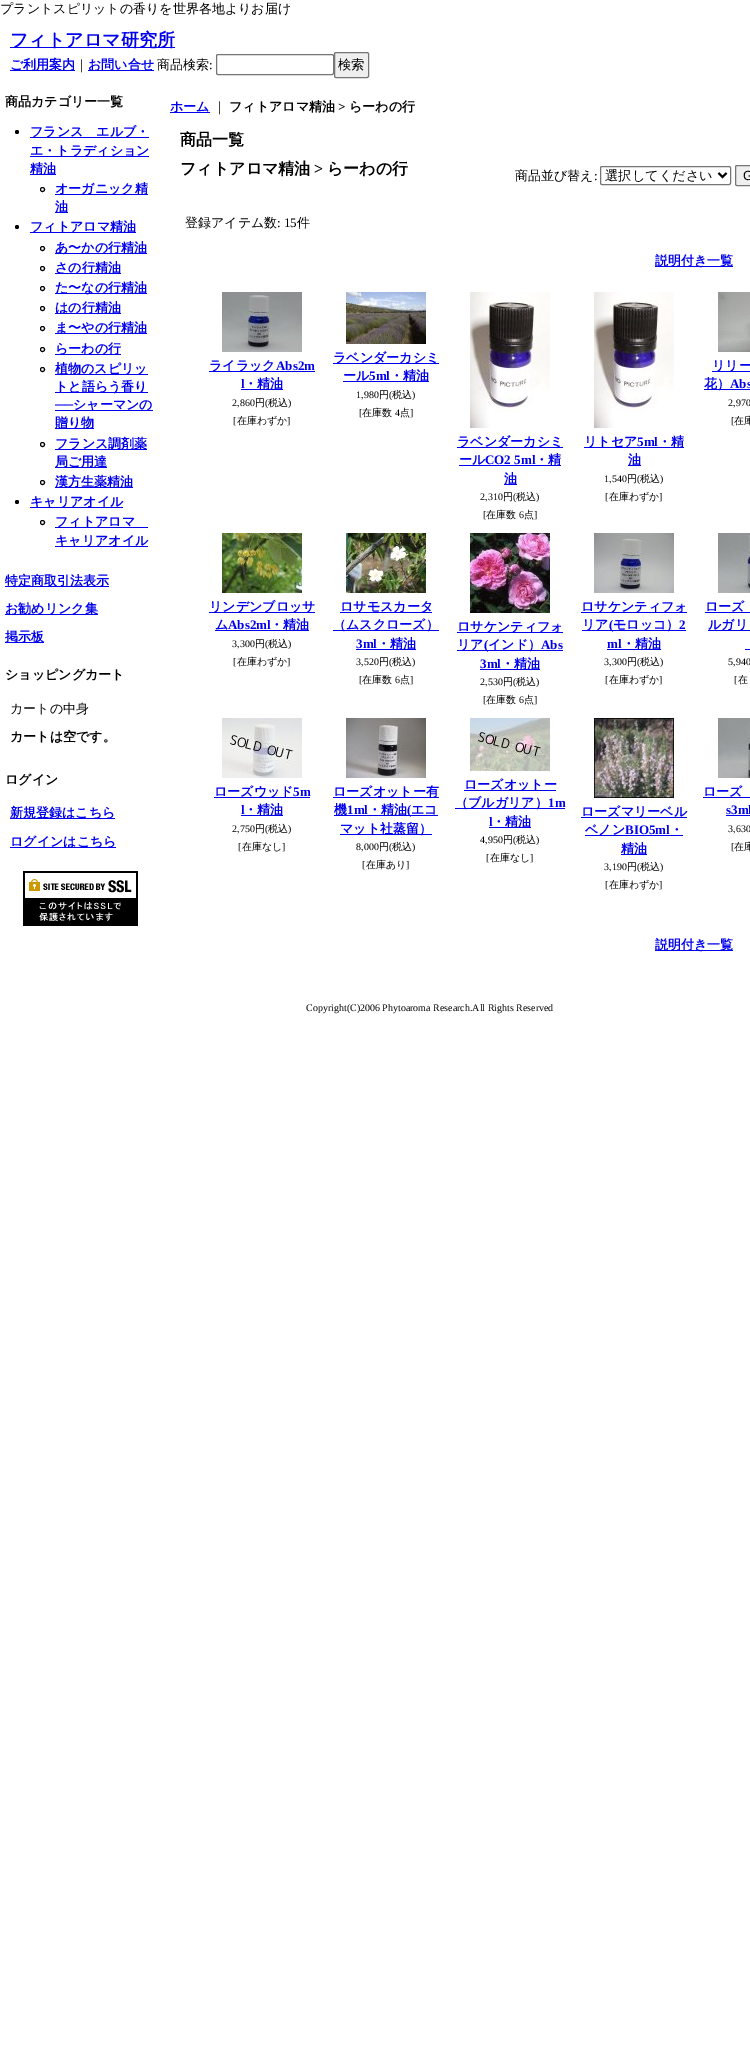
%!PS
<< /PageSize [750 2056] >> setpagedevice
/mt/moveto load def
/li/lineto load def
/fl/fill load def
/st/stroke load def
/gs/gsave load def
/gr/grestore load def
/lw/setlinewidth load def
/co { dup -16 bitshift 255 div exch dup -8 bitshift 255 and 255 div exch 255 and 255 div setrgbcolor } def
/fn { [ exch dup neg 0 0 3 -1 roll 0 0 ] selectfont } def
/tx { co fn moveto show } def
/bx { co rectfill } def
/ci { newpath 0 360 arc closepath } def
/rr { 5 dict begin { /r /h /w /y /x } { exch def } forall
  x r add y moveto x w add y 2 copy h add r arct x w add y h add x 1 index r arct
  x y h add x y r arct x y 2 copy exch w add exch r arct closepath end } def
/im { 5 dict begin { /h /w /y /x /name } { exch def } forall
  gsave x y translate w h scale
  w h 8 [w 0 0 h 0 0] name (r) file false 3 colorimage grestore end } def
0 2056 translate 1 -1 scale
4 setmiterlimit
0 0 750 2056 16#FFFFFF bx
10 47 165 1 16#0000EE bx
10 70 65 1 16#0000EE bx
88 70 66 1 16#0000EE bx
16#767676 co
216.5 54.5 117 20 1.5 rr st
16#EFEFEF co
334.5 52.5 34 25 1.5 rr gs fl gr
16#767676 co
st
16#000000 co
17 132 2 ci fl
30 137 119 1 16#0000EE bx
30 156 119 1 16#0000EE bx
30 174 26 1 16#0000EE bx
16#000000 co
42.5 189.5 2 ci st
55 194 93 1 16#0000EE bx
55 212 13 1 16#0000EE bx
16#000000 co
17 227 2 ci fl
30 232 106 1 16#0000EE bx
16#000000 co
42.5 248.5 2 ci st
55 253 92 1 16#0000EE bx
16#000000 co
42.5 268.5 2 ci st
55 273 66 1 16#0000EE bx
16#000000 co
42.5 288.5 2 ci st
55 293 92 1 16#0000EE bx
16#000000 co
42.5 308.5 2 ci st
55 313 66 1 16#0000EE bx
16#000000 co
42.5 328.5 2 ci st
55 333 92 1 16#0000EE bx
16#000000 co
42.5 349.5 2 ci st
55 354 66 1 16#0000EE bx
16#000000 co
42.5 369.5 2 ci st
55 374 93 1 16#0000EE bx
55 392 93 1 16#0000EE bx
55 410 98 1 16#0000EE bx
55 428 39 1 16#0000EE bx
16#000000 co
42.5 444.5 2 ci st
55 449 92 1 16#0000EE bx
55 467 52 1 16#0000EE bx
16#000000 co
42.5 482.5 2 ci st
55 487 78 1 16#0000EE bx
16#000000 co
17 502 2 ci fl
30 507 93 1 16#0000EE bx
16#000000 co
42.5 522.5 2 ci st
55 527 93 1 16#0000EE bx
55 546 93 1 16#0000EE bx
5 586 104 1 16#0000EE bx
5 614 93 1 16#0000EE bx
5 642 39 1 16#0000EE bx
10 818 105 1 16#0000EE bx
10 847 106 1 16#0000EE bx
(media/1.raw) 23 871 115 55 im
170 112 40 1 16#0000EE bx
16#767676 co
600.5 166.5 130 18 1.5 rr st
16#000000 co
2 lw
718.5 173 mt 722.5 177 li 726.5 173 li st
16#EFEFEF co
735.5 165.5 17 20 1.5 rr gs fl gr
16#767676 co
1 lw
st
655 266 78 1 16#0000EE bx
(media/2.raw) 222 292 80 60 im
209 371 106 1 16#0000EE bx
241 389 42 1 16#0000EE bx
(media/3.raw) 346 292 80 52 im
333 363 106 1 16#0000EE bx
343 381 86 1 16#0000EE bx
(media/4.raw) 718 292 32 60 im
712 371 38 1 16#0000EE bx
704 389 46 1 16#0000EE bx
(media/5.raw) 470 292 80 136 im
457 447 106 1 16#0000EE bx
459 465 102 1 16#0000EE bx
504 484 13 1 16#0000EE bx
(media/5.raw) 594 292 80 136 im
584 447 100 1 16#0000EE bx
628 465 13 1 16#0000EE bx
(media/6.raw) 222 533 80 60 im
209 612 106 1 16#0000EE bx
215 630 94 1 16#0000EE bx
(media/7.raw) 346 533 80 60 im
340 612 92 1 16#0000EE bx
333 630 106 1 16#0000EE bx
356 649 60 1 16#0000EE bx
(media/8.raw) 470 533 80 80 im
457 632 106 1 16#0000EE bx
457 650 106 1 16#0000EE bx
480 669 60 1 16#0000EE bx
(media/9.raw) 594 533 80 60 im
581 612 106 1 16#0000EE bx
582 630 104 1 16#0000EE bx
607 649 54 1 16#0000EE bx
(media/10.raw) 718 533 32 60 im
705 612 45 1 16#0000EE bx
708 630 42 1 16#0000EE bx
745 649 5 1 16#0000EE bx
(media/11.raw) 222 718 80 60 im
214 797 96 1 16#0000EE bx
241 815 42 1 16#0000EE bx
(media/12.raw) 346 718 80 60 im
333 797 106 1 16#0000EE bx
334 815 104 1 16#0000EE bx
340 834 92 1 16#0000EE bx
(media/13.raw) 470 718 80 53 im
464 790 92 1 16#0000EE bx
455 808 110 1 16#0000EE bx
489 827 42 1 16#0000EE bx
(media/14.raw) 594 718 80 80 im
581 817 106 1 16#0000EE bx
585 835 98 1 16#0000EE bx
621 854 26 1 16#0000EE bx
(media/15.raw) 718 718 32 60 im
703 797 47 1 16#0000EE bx
726 815 24 1 16#0000EE bx
655 950 78 1 16#0000EE bx
(プラントスピリットの香りを世界各地よりお届け) 0 13 /WenQuanYiZenHei-Medium 13 16#000000 tx
(フィトアロマ研究所) 10 46 /WenQuanYiZenHei-Bold 18 16#0000EE tx
(ご利用案内) 10 69 /WenQuanYiZenHei-Bold 13 16#0000EE tx
(｜) 75 69 /WenQuanYiZenHei-Medium 13 16#000000 tx
(お問い合せ) 88 69 /WenQuanYiZenHei-Bold 13 16#0000EE tx
(商品検索) 157 69 /WenQuanYiZenHei-Medium 13 16#000000 tx
(:) 209 69 /LiberationSerif-Regular 13 16#000000 tx
(検索) 338 69 /WenQuanYiZenHei-Medium 13.25 16#000000 tx
(商品カテゴリー一覧) 5 106 /WenQuanYiZenHei-Bold 13 16#000000 tx
(フランス　エルブ・) 30 136 /WenQuanYiZenHei-Bold 13 16#0000EE tx
(エ・トラディション) 30 155 /WenQuanYiZenHei-Bold 13 16#0000EE tx
(精油) 30 173 /WenQuanYiZenHei-Bold 13 16#0000EE tx
(オーガニック精) 55 193 /WenQuanYiZenHei-Bold 13 16#0000EE tx
(油) 55 211 /WenQuanYiZenHei-Bold 13 16#0000EE tx
(フィトアロマ精油) 30 231 /WenQuanYiZenHei-Bold 13 16#0000EE tx
(あ〜かの行精油) 55 252 /WenQuanYiZenHei-Bold 13 16#0000EE tx
(さの行精油) 55 272 /WenQuanYiZenHei-Bold 13 16#0000EE tx
(た〜なの行精油) 55 292 /WenQuanYiZenHei-Bold 13 16#0000EE tx
(はの行精油) 55 312 /WenQuanYiZenHei-Bold 13 16#0000EE tx
(ま〜やの行精油) 55 332 /WenQuanYiZenHei-Bold 13 16#0000EE tx
(らーわの行) 55 353 /WenQuanYiZenHei-Bold 13 16#0000EE tx
(植物のスピリッ) 55 373 /WenQuanYiZenHei-Bold 13 16#0000EE tx
(トと語らう香り) 55 391 /WenQuanYiZenHei-Bold 13 16#0000EE tx
(──) 55 409 /LiberationSerif-Bold 13 16#0000EE tx
(シャーマンの) 73 409 /WenQuanYiZenHei-Bold 13 16#0000EE tx
(贈り物) 55 427 /WenQuanYiZenHei-Bold 13 16#0000EE tx
(フランス調剤薬) 55 448 /WenQuanYiZenHei-Bold 13 16#0000EE tx
(局ご用達) 55 466 /WenQuanYiZenHei-Bold 13 16#0000EE tx
(漢方生薬精油) 55 486 /WenQuanYiZenHei-Bold 13 16#0000EE tx
(キャリアオイル) 30 506 /WenQuanYiZenHei-Bold 13 16#0000EE tx
(フィトアロマ) 55 526 /WenQuanYiZenHei-Bold 13 16#0000EE tx
(キャリアオイル) 55 545 /WenQuanYiZenHei-Bold 13 16#0000EE tx
(特定商取引法表示) 5 585 /WenQuanYiZenHei-Bold 13 16#0000EE tx
(お勧めリンク集) 5 613 /WenQuanYiZenHei-Bold 13 16#0000EE tx
(掲示板) 5 641 /WenQuanYiZenHei-Bold 13 16#0000EE tx
(ショッピングカート) 5 679 /WenQuanYiZenHei-Bold 13 16#000000 tx
(カートの中身) 10 713 /WenQuanYiZenHei-Medium 13 16#000000 tx
(カートは空です。) 10 741 /WenQuanYiZenHei-Bold 13 16#000000 tx
(ログイン) 5 784 /WenQuanYiZenHei-Bold 13 16#000000 tx
(新規登録はこちら) 10 817 /WenQuanYiZenHei-Bold 13 16#0000EE tx
(ログインはこちら) 10 846 /WenQuanYiZenHei-Bold 13 16#0000EE tx
(ホーム) 170 111 /WenQuanYiZenHei-Bold 13 16#0000EE tx
(｜) 213 111 /WenQuanYiZenHei-Medium 13 16#000000 tx
(フィトアロマ精油) 229 111 /WenQuanYiZenHei-Bold 13 16#000000 tx
(>) 338 111 /LiberationSerif-Bold 13 16#000000 tx
(らーわの行) 349 111 /WenQuanYiZenHei-Bold 13 16#000000 tx
(商品一覧) 180 145 /WenQuanYiZenHei-Bold 16 16#000000 tx
(フィトアロマ精油) 180 174 /WenQuanYiZenHei-Bold 16 16#000000 tx
(>) 314 174 /LiberationSerif-Bold 16 16#000000 tx
(らーわの行) 327 174 /WenQuanYiZenHei-Bold 16 16#000000 tx
(商品並び替え) 515 180 /WenQuanYiZenHei-Medium 13 16#000000 tx
(:) 594 180 /LiberationSerif-Regular 13 16#000000 tx
(選択してください) 605 180 /WenQuanYiZenHei-Medium 13.25 16#000000 tx
(G) 743 180 /LiberationSans-Regular 13.25 16#000000 tx
(登録アイテム数) 185 227 /WenQuanYiZenHei-Medium 13 16#000000 tx
(: 15) 277 227 /LiberationSerif-Regular 13 16#000000 tx
(件) 297 227 /WenQuanYiZenHei-Medium 13 16#000000 tx
(説明付き一覧) 655 265 /WenQuanYiZenHei-Bold 13 16#0000EE tx
(ライラック) 209 370 /WenQuanYiZenHei-Bold 13 16#0000EE tx
(Abs2m) 276 370 /LiberationSerif-Bold 13 16#0000EE tx
(l) 241 388 /LiberationSerif-Bold 13 16#0000EE tx
(・精油) 244 388 /WenQuanYiZenHei-Bold 13 16#0000EE tx
(2,860) 232 406 /LiberationSerif-Regular 10 16#000000 tx
(円) 255 406 /WenQuanYiZenHei-Medium 10 16#000000 tx
(\() 265 406 /LiberationSerif-Regular 10 16#000000 tx
(税込) 268 406 /WenQuanYiZenHei-Medium 10 16#000000 tx
(\)) 288 406 /LiberationSerif-Regular 10 16#000000 tx
([) 233 424 /LiberationSerif-Regular 10 16#000000 tx
(在庫わずか) 237 424 /WenQuanYiZenHei-Medium 10 16#000000 tx
(]) 287 424 /LiberationSerif-Regular 10 16#000000 tx
(ラベンダーカシミ) 333 362 /WenQuanYiZenHei-Bold 13 16#0000EE tx
(ール) 343 380 /WenQuanYiZenHei-Bold 13 16#0000EE tx
(5ml) 369 380 /LiberationSerif-Bold 13 16#0000EE tx
(・精油) 390 380 /WenQuanYiZenHei-Bold 13 16#0000EE tx
(1,980) 356 398 /LiberationSerif-Regular 10 16#000000 tx
(円) 379 398 /WenQuanYiZenHei-Medium 10 16#000000 tx
(\() 389 398 /LiberationSerif-Regular 10 16#000000 tx
(税込) 392 398 /WenQuanYiZenHei-Medium 10 16#000000 tx
(\)) 412 398 /LiberationSerif-Regular 10 16#000000 tx
([) 359 416 /LiberationSerif-Regular 10 16#000000 tx
(在庫数) 362 416 /WenQuanYiZenHei-Medium 10 16#000000 tx
(4) 395 416 /LiberationSerif-Regular 10 16#000000 tx
(点) 400 416 /WenQuanYiZenHei-Medium 10 16#000000 tx
(]) 410 416 /LiberationSerif-Regular 10 16#000000 tx
(リリー) 712 370 /WenQuanYiZenHei-Bold 13 16#0000EE tx
(花）) 704 388 /WenQuanYiZenHei-Bold 13 16#0000EE tx
(Abs) 730 388 /LiberationSerif-Bold 13 16#0000EE tx
(2,970) 728 406 /LiberationSerif-Regular 10 16#000000 tx
([) 731 424 /LiberationSerif-Regular 10 16#000000 tx
(在庫) 734 424 /WenQuanYiZenHei-Medium 10 16#000000 tx
(ラベンダーカシミ) 457 446 /WenQuanYiZenHei-Bold 13 16#0000EE tx
(ール) 459 464 /WenQuanYiZenHei-Bold 13 16#0000EE tx
(CO2 5ml) 485 464 /LiberationSerif-Bold 13 16#0000EE tx
(・精) 535 464 /WenQuanYiZenHei-Bold 13 16#0000EE tx
(油) 504 483 /WenQuanYiZenHei-Bold 13 16#0000EE tx
(2,310) 480 500 /LiberationSerif-Regular 10 16#000000 tx
(円) 503 500 /WenQuanYiZenHei-Medium 10 16#000000 tx
(\() 513 500 /LiberationSerif-Regular 10 16#000000 tx
(税込) 516 500 /WenQuanYiZenHei-Medium 10 16#000000 tx
(\)) 536 500 /LiberationSerif-Regular 10 16#000000 tx
([) 483 518 /LiberationSerif-Regular 10 16#000000 tx
(在庫数) 486 518 /WenQuanYiZenHei-Medium 10 16#000000 tx
(6) 519 518 /LiberationSerif-Regular 10 16#000000 tx
(点) 524 518 /WenQuanYiZenHei-Medium 10 16#000000 tx
(]) 534 518 /LiberationSerif-Regular 10 16#000000 tx
(リトセア) 584 446 /WenQuanYiZenHei-Bold 13 16#0000EE tx
(5ml) 637 446 /LiberationSerif-Bold 13 16#0000EE tx
(・精) 658 446 /WenQuanYiZenHei-Bold 13 16#0000EE tx
(油) 628 464 /WenQuanYiZenHei-Bold 13 16#0000EE tx
(1,540) 604 482 /LiberationSerif-Regular 10 16#000000 tx
(円) 627 482 /WenQuanYiZenHei-Medium 10 16#000000 tx
(\() 637 482 /LiberationSerif-Regular 10 16#000000 tx
(税込) 640 482 /WenQuanYiZenHei-Medium 10 16#000000 tx
(\)) 660 482 /LiberationSerif-Regular 10 16#000000 tx
([) 605 500 /LiberationSerif-Regular 10 16#000000 tx
(在庫わずか) 609 500 /WenQuanYiZenHei-Medium 10 16#000000 tx
(]) 659 500 /LiberationSerif-Regular 10 16#000000 tx
(リンデンブロッサ) 209 611 /WenQuanYiZenHei-Bold 13 16#0000EE tx
(ム) 215 629 /WenQuanYiZenHei-Bold 13 16#0000EE tx
(Abs2ml) 228 629 /LiberationSerif-Bold 13 16#0000EE tx
(・精油) 270 629 /WenQuanYiZenHei-Bold 13 16#0000EE tx
(3,300) 232 647 /LiberationSerif-Regular 10 16#000000 tx
(円) 255 647 /WenQuanYiZenHei-Medium 10 16#000000 tx
(\() 265 647 /LiberationSerif-Regular 10 16#000000 tx
(税込) 268 647 /WenQuanYiZenHei-Medium 10 16#000000 tx
(\)) 288 647 /LiberationSerif-Regular 10 16#000000 tx
([) 233 665 /LiberationSerif-Regular 10 16#000000 tx
(在庫わずか) 237 665 /WenQuanYiZenHei-Medium 10 16#000000 tx
(]) 287 665 /LiberationSerif-Regular 10 16#000000 tx
(ロサモスカータ) 340 611 /WenQuanYiZenHei-Bold 13 16#0000EE tx
(（ムスクローズ）) 333 629 /WenQuanYiZenHei-Bold 13 16#0000EE tx
(3ml) 356 648 /LiberationSerif-Bold 13 16#0000EE tx
(・精油) 377 648 /WenQuanYiZenHei-Bold 13 16#0000EE tx
(3,520) 356 665 /LiberationSerif-Regular 10 16#000000 tx
(円) 379 665 /WenQuanYiZenHei-Medium 10 16#000000 tx
(\() 389 665 /LiberationSerif-Regular 10 16#000000 tx
(税込) 392 665 /WenQuanYiZenHei-Medium 10 16#000000 tx
(\)) 412 665 /LiberationSerif-Regular 10 16#000000 tx
([) 359 683 /LiberationSerif-Regular 10 16#000000 tx
(在庫数) 362 683 /WenQuanYiZenHei-Medium 10 16#000000 tx
(6) 395 683 /LiberationSerif-Regular 10 16#000000 tx
(点) 400 683 /WenQuanYiZenHei-Medium 10 16#000000 tx
(]) 410 683 /LiberationSerif-Regular 10 16#000000 tx
(ロサケンティフォ) 457 631 /WenQuanYiZenHei-Bold 13 16#0000EE tx
(リア) 457 649 /WenQuanYiZenHei-Bold 13 16#0000EE tx
(\() 484 649 /LiberationSerif-Bold 13 16#0000EE tx
(インド）) 488 649 /WenQuanYiZenHei-Bold 13 16#0000EE tx
(Abs) 541 649 /LiberationSerif-Bold 13 16#0000EE tx
(3ml) 480 668 /LiberationSerif-Bold 13 16#0000EE tx
(・精油) 501 668 /WenQuanYiZenHei-Bold 13 16#0000EE tx
(2,530) 480 685 /LiberationSerif-Regular 10 16#000000 tx
(円) 503 685 /WenQuanYiZenHei-Medium 10 16#000000 tx
(\() 513 685 /LiberationSerif-Regular 10 16#000000 tx
(税込) 516 685 /WenQuanYiZenHei-Medium 10 16#000000 tx
(\)) 536 685 /LiberationSerif-Regular 10 16#000000 tx
([) 483 703 /LiberationSerif-Regular 10 16#000000 tx
(在庫数) 486 703 /WenQuanYiZenHei-Medium 10 16#000000 tx
(6) 519 703 /LiberationSerif-Regular 10 16#000000 tx
(点) 524 703 /WenQuanYiZenHei-Medium 10 16#000000 tx
(]) 534 703 /LiberationSerif-Regular 10 16#000000 tx
(ロサケンティフォ) 581 611 /WenQuanYiZenHei-Bold 13 16#0000EE tx
(リア) 582 629 /WenQuanYiZenHei-Bold 13 16#0000EE tx
(\() 609 629 /LiberationSerif-Bold 13 16#0000EE tx
(モロッコ）) 613 629 /WenQuanYiZenHei-Bold 13 16#0000EE tx
(2) 679 629 /LiberationSerif-Bold 13 16#0000EE tx
(ml) 607 648 /LiberationSerif-Bold 13 16#0000EE tx
(・精油) 622 648 /WenQuanYiZenHei-Bold 13 16#0000EE tx
(3,300) 604 665 /LiberationSerif-Regular 10 16#000000 tx
(円) 627 665 /WenQuanYiZenHei-Medium 10 16#000000 tx
(\() 637 665 /LiberationSerif-Regular 10 16#000000 tx
(税込) 640 665 /WenQuanYiZenHei-Medium 10 16#000000 tx
(\)) 660 665 /LiberationSerif-Regular 10 16#000000 tx
([) 605 683 /LiberationSerif-Regular 10 16#000000 tx
(在庫わずか) 609 683 /WenQuanYiZenHei-Medium 10 16#000000 tx
(]) 659 683 /LiberationSerif-Regular 10 16#000000 tx
(ローズ) 705 611 /WenQuanYiZenHei-Bold 13 16#0000EE tx
(ルガリ) 708 629 /WenQuanYiZenHei-Bold 13 16#0000EE tx
(5,940) 728 665 /LiberationSerif-Regular 10 16#000000 tx
([) 734 683 /LiberationSerif-Regular 10 16#000000 tx
(在) 738 683 /WenQuanYiZenHei-Medium 10 16#000000 tx
(ローズウッド) 214 796 /WenQuanYiZenHei-Bold 13 16#0000EE tx
(5m) 293 796 /LiberationSerif-Bold 13 16#0000EE tx
(l) 241 814 /LiberationSerif-Bold 13 16#0000EE tx
(・精油) 244 814 /WenQuanYiZenHei-Bold 13 16#0000EE tx
(2,750) 232 832 /LiberationSerif-Regular 10 16#000000 tx
(円) 255 832 /WenQuanYiZenHei-Medium 10 16#000000 tx
(\() 265 832 /LiberationSerif-Regular 10 16#000000 tx
(税込) 268 832 /WenQuanYiZenHei-Medium 10 16#000000 tx
(\)) 288 832 /LiberationSerif-Regular 10 16#000000 tx
([) 238 850 /LiberationSerif-Regular 10 16#000000 tx
(在庫なし) 242 850 /WenQuanYiZenHei-Medium 10 16#000000 tx
(]) 282 850 /LiberationSerif-Regular 10 16#000000 tx
(ローズオットー有) 333 796 /WenQuanYiZenHei-Bold 13 16#0000EE tx
(機) 334 814 /WenQuanYiZenHei-Bold 13 16#0000EE tx
(1ml) 347 814 /LiberationSerif-Bold 13 16#0000EE tx
(・精油) 368 814 /WenQuanYiZenHei-Bold 13 16#0000EE tx
(\() 407 814 /LiberationSerif-Bold 13 16#0000EE tx
(エコ) 411 814 /WenQuanYiZenHei-Bold 13 16#0000EE tx
(マット社蒸留）) 340 833 /WenQuanYiZenHei-Bold 13 16#0000EE tx
(8,000) 356 850 /LiberationSerif-Regular 10 16#000000 tx
(円) 379 850 /WenQuanYiZenHei-Medium 10 16#000000 tx
(\() 389 850 /LiberationSerif-Regular 10 16#000000 tx
(税込) 392 850 /WenQuanYiZenHei-Medium 10 16#000000 tx
(\)) 412 850 /LiberationSerif-Regular 10 16#000000 tx
([) 362 868 /LiberationSerif-Regular 10 16#000000 tx
(在庫あり) 366 868 /WenQuanYiZenHei-Medium 10 16#000000 tx
(]) 406 868 /LiberationSerif-Regular 10 16#000000 tx
(ローズオットー) 464 789 /WenQuanYiZenHei-Bold 13 16#0000EE tx
(（ブルガリア）) 455 807 /WenQuanYiZenHei-Bold 13 16#0000EE tx
(1m) 548 807 /LiberationSerif-Bold 13 16#0000EE tx
(l) 489 826 /LiberationSerif-Bold 13 16#0000EE tx
(・精油) 492 826 /WenQuanYiZenHei-Bold 13 16#0000EE tx
(4,950) 480 843 /LiberationSerif-Regular 10 16#000000 tx
(円) 503 843 /WenQuanYiZenHei-Medium 10 16#000000 tx
(\() 513 843 /LiberationSerif-Regular 10 16#000000 tx
(税込) 516 843 /WenQuanYiZenHei-Medium 10 16#000000 tx
(\)) 536 843 /LiberationSerif-Regular 10 16#000000 tx
([) 486 861 /LiberationSerif-Regular 10 16#000000 tx
(在庫なし) 490 861 /WenQuanYiZenHei-Medium 10 16#000000 tx
(]) 530 861 /LiberationSerif-Regular 10 16#000000 tx
(ローズマリーベル) 581 816 /WenQuanYiZenHei-Bold 13 16#0000EE tx
(ベノン) 585 834 /WenQuanYiZenHei-Bold 13 16#0000EE tx
(BIO5ml) 625 834 /LiberationSerif-Bold 13 16#0000EE tx
(・) 670 834 /WenQuanYiZenHei-Bold 13 16#0000EE tx
(精油) 621 853 /WenQuanYiZenHei-Bold 13 16#0000EE tx
(3,190) 604 870 /LiberationSerif-Regular 10 16#000000 tx
(円) 627 870 /WenQuanYiZenHei-Medium 10 16#000000 tx
(\() 637 870 /LiberationSerif-Regular 10 16#000000 tx
(税込) 640 870 /WenQuanYiZenHei-Medium 10 16#000000 tx
(\)) 660 870 /LiberationSerif-Regular 10 16#000000 tx
([) 605 888 /LiberationSerif-Regular 10 16#000000 tx
(在庫わずか) 609 888 /WenQuanYiZenHei-Medium 10 16#000000 tx
(]) 659 888 /LiberationSerif-Regular 10 16#000000 tx
(ローズ) 703 796 /WenQuanYiZenHei-Bold 13 16#0000EE tx
(s3ml) 726 814 /LiberationSerif-Bold 13 16#0000EE tx
(3,630) 728 832 /LiberationSerif-Regular 10 16#000000 tx
([) 731 850 /LiberationSerif-Regular 10 16#000000 tx
(在庫) 734 850 /WenQuanYiZenHei-Medium 10 16#000000 tx
(説明付き一覧) 655 949 /WenQuanYiZenHei-Bold 13 16#0000EE tx
(Copyright\(C\)2006 Phytoaroma Research.All Rights Reserved) 306 1011 /LiberationSerif-Regular 10 16#000000 tx
showpage
